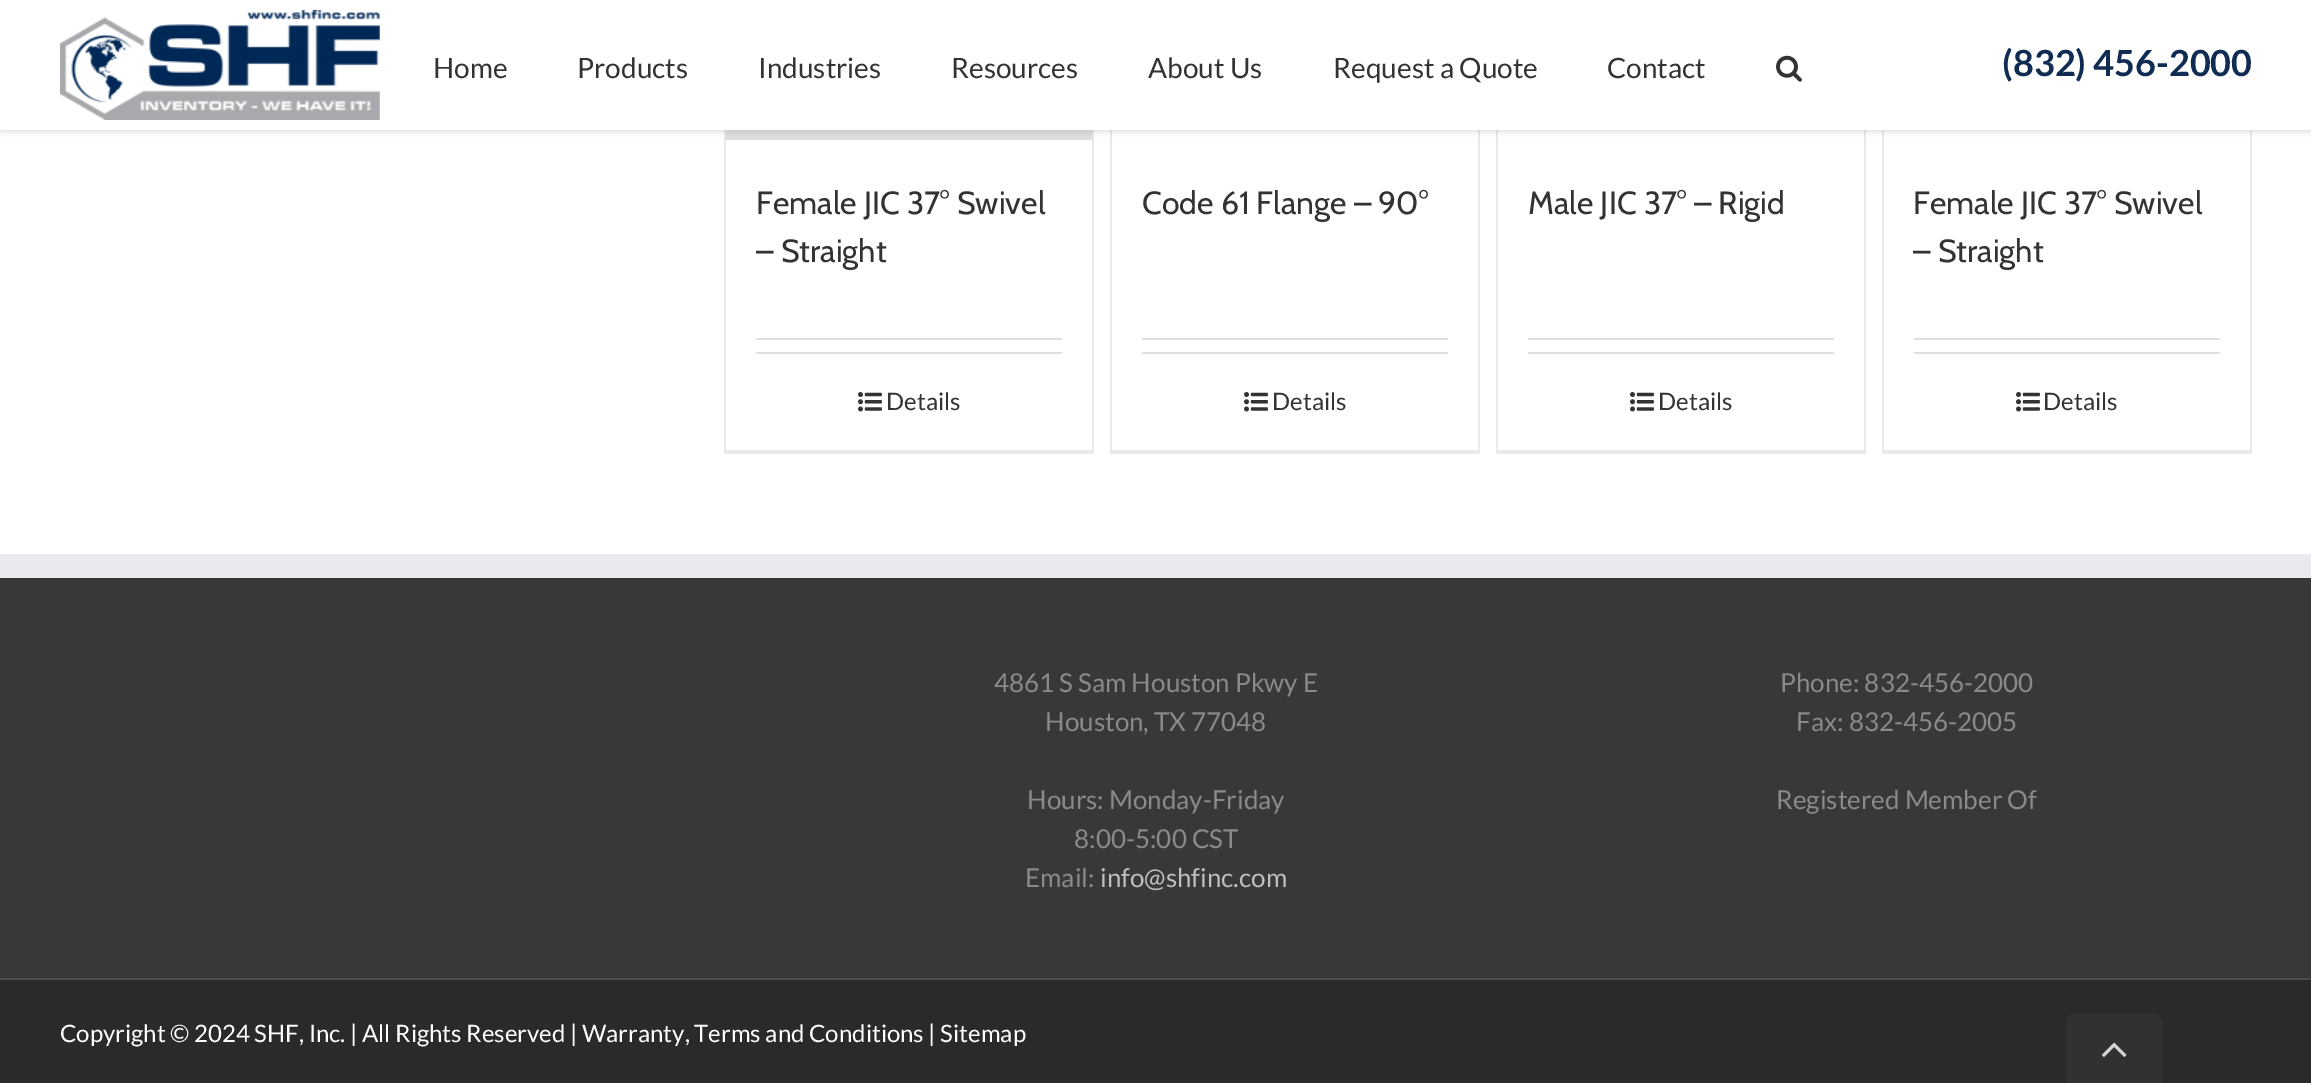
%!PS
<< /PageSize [2311 1083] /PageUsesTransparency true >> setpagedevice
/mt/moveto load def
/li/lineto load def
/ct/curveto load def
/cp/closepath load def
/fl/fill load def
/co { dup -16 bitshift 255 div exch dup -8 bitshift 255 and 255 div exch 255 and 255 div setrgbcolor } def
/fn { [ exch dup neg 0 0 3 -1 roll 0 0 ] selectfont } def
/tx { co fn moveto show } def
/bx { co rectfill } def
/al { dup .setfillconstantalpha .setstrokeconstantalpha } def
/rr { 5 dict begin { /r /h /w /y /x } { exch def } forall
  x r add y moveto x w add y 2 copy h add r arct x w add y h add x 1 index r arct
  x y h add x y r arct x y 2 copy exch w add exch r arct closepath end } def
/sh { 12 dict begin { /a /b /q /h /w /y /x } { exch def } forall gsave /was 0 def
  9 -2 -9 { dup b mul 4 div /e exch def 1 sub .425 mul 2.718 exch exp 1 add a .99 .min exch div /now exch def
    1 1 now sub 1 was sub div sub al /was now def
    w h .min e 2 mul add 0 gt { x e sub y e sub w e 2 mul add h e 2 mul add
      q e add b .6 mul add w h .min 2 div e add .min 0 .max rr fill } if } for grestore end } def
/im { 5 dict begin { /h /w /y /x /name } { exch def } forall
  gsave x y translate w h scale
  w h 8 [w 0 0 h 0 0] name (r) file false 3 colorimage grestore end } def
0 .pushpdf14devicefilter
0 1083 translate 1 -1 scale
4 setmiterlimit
0 0 2311 1083 16#FFFFFF bx
1092 130 2 324 16#EBEAEA bx
724 450 370 4 16#EBEAEA bx
724 130 2 324 16#EBEAEA bx
726 130 366 10 16#E0DEDE bx
1478 130 2 324 16#EBEAEA bx
1110 450 370 4 16#EBEAEA bx
1110 130 2 324 16#EBEAEA bx
1864 130 2 324 16#EBEAEA bx
1496 450 370 4 16#EBEAEA bx
1496 130 2 324 16#EBEAEA bx
2250 130 2 324 16#EBEAEA bx
1882 450 370 4 16#EBEAEA bx
1882 130 2 324 16#EBEAEA bx
16#000000 co
0 2 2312 130 0 3 .12 sh
0 0 2311 130 16#FFFFFF bx
(media/1.raw) 60 10 320 110 im
(media/2.raw) 1776 55 26 27 im
756 338 306 2 16#E0DEDE bx
756 352 306 2 16#E0DEDE bx
(media/3.raw) 858 392 24 20 im
1142 338 306 2 16#E0DEDE bx
1142 352 306 2 16#E0DEDE bx
(media/3.raw) 1244 392 24 20 im
1528 338 306 2 16#E0DEDE bx
1528 352 306 2 16#E0DEDE bx
(media/3.raw) 1630 392 24 20 im
1914 338 306 2 16#E0DEDE bx
1914 352 306 2 16#E0DEDE bx
(media/3.raw) 2016 392 24 20 im
0 578 2311 400 16#363839 bx
0 554 2311 24 16#E9EAEE bx
0 980 2311 103 16#282A2B bx
0 978 2311 2 16#4B4C4D bx
16#313131 co
2074 1014 mt 2154 1014 li 2158.5 1014 2162 1017.5 2162 1022 ct 2162 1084 li 2066 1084 li 2066 1022 li 2066 1017.5 2069.5 1014 2074 1014 ct cp fl
(media/4.raw) 2102 1042 25 15 im
(Home) 433 78 /Lato-Regular 28 16#333333 tx
(Products) 577 78 /Lato-Regular 28 16#333333 tx
(Industries) 758 78 /Lato-Regular 28 16#333333 tx
(Resources) 951 78 /Lato-Regular 28 16#333333 tx
(About Us) 1148 78 /Lato-Regular 28 16#333333 tx
(Request a Quote) 1333 78 /Lato-Regular 28 16#333333 tx
(Contact) 1607 78 /Lato-Regular 28 16#333333 tx
(\(832\) 456-2000) 2002 76 /Lato-Bold 36 16#102C52 tx
(Female JIC 37° Swivel) 756 214 /Cabin-Regular 32 16#333333 tx
(– Straight) 756 262 /Cabin-Regular 32 16#333333 tx
(Details) 886 410 /Lato-Regular 24 16#333333 tx
(Code 61 Flange – 90°) 1142 214 /Cabin-Regular 32 16#333333 tx
(Details) 1272 410 /Lato-Regular 24 16#333333 tx
(Male JIC 37° – Rigid) 1528 214 /Cabin-Regular 32 16#333333 tx
(Details) 1658 410 /Lato-Regular 24 16#333333 tx
(Female JIC 37° Swivel) 1913 214 /Cabin-Regular 32 16#333333 tx
(– Straight) 1913 262 /Cabin-Regular 32 16#333333 tx
(Details) 2043 410 /Lato-Regular 24 16#333333 tx
(4861 S Sam Houston Pkwy E) 994 692 /Lato-Regular 26 16#8C8989 tx
(Houston, TX 77048) 1045 731 /Lato-Regular 26 16#8C8989 tx
(Hours: Monday-Friday) 1027 809 /Lato-Regular 26 16#8C8989 tx
(8:00-5:00 CST) 1074 848 /Lato-Regular 26 16#8C8989 tx
(Email:) 1025 887 /Lato-Regular 26 16#8C8989 tx
(info@shfinc.com) 1100 887 /Lato-Regular 26 16#BFBFBF tx
(Phone: 832-456-2000) 1780 692 /Lato-Regular 26 16#8C8989 tx
(Fax: 832-456-2005) 1796 731 /Lato-Regular 26 16#8C8989 tx
(Registered Member Of) 1776 809 /Lato-Regular 26 16#8C8989 tx
(Copyright © 2024 SHF, Inc. | All Rights Reserved | Warranty, Terms and Conditions | Sitemap) 60 1042 /Lato-Regular 24 16#FFFFFF tx
.poppdf14devicefilter showpage
